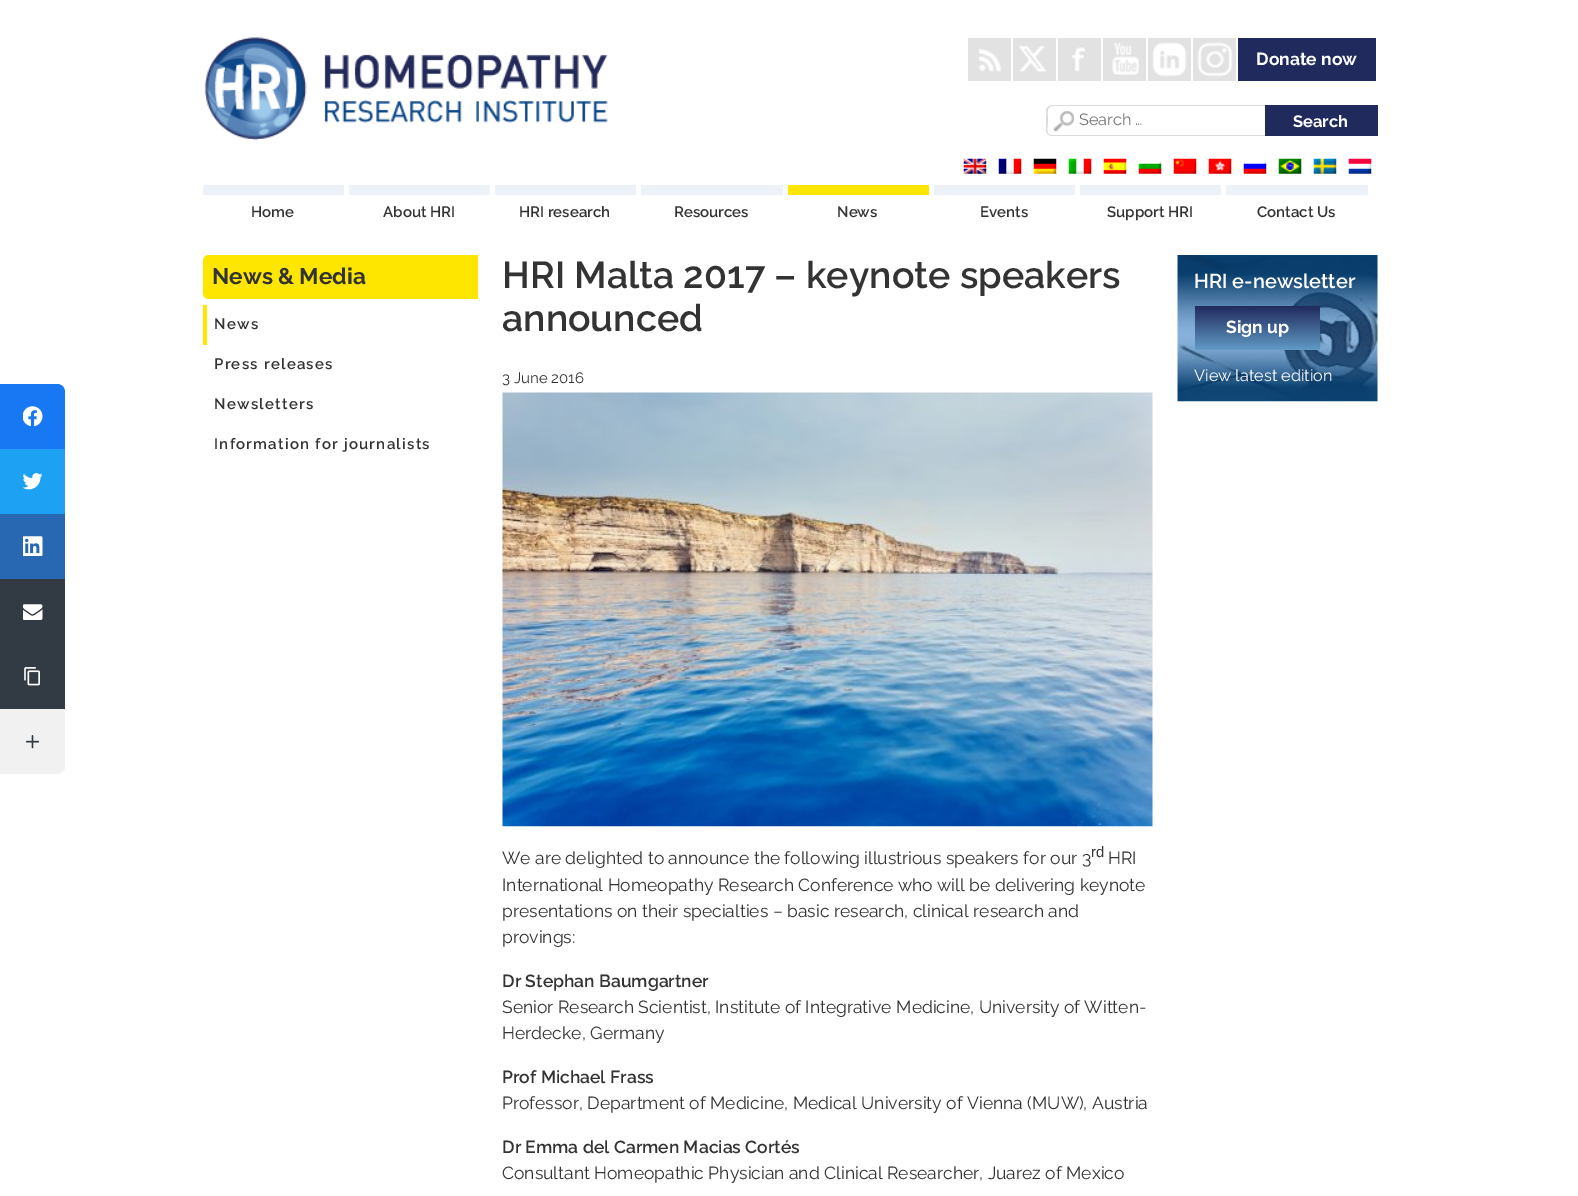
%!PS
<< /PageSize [1578 1196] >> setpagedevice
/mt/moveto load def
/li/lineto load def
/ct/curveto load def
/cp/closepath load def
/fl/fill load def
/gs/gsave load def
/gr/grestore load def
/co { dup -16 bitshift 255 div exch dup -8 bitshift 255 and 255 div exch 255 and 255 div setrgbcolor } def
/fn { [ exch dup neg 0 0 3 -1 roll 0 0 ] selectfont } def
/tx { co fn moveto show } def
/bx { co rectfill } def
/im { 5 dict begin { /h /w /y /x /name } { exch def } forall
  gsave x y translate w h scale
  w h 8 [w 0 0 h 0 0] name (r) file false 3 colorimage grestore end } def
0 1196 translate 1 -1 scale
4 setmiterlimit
0 0 1578 1196 16#FFFFFF bx
16#1877F2 co
0 384 mt 57 384 li 61.5 384 65 387.5 65 392 ct 65 449 li 0 449 li cp fl
(media/1.raw) 23 406 20 20 im
0 449 65 65 16#1DA1F2 bx
(media/2.raw) 23 473 20 17 im
0 514 65 65 16#2867B2 bx
(media/3.raw) 23 536 20 20 im
0 579 65 130 16#323B43 bx
(media/4.raw) 23 604 20 16 im
(media/5.raw) 24 667 16 19 im
16#F1F1F1 co
0 709 mt 65 709 li 65 766 li 65 770.5 61.5 774 57 774 ct 0 774 li cp fl
(media/6.raw) 25 735 15 14 im
(media/7.raw) 204 37 404 103 im
968 38 43 43 16#E2E2E2 bx
(media/8.raw) 978 48 24 24 im
1013 38 43 43 16#E2E2E2 bx
(media/9.raw) 1019 46 28 26 im
1058 38 43 43 16#E2E2E2 bx
(media/10.raw) 1072 47 13 25 im
1103 38 43 43 16#E2E2E2 bx
(media/11.raw) 1112 42 27 33 im
1148 38 43 43 16#E2E2E2 bx
(media/12.raw) 1152 42 35 35 im
1193 38 43 43 16#E2E2E2 bx
(media/13.raw) 1197 42 36 35 im
1238 38 138 43 16#202A5D bx
(media/14.raw) 1053 111 21 21 im
16#DCDBDB co
1052 105 mt 1265 105 li 1265 136 li 1052 136 li 1049 136 1046 133 1046 130 ct 1046 111 li 1046 108 1049 105 1052 105 ct cp 1052 106 mt 1265 106 li 1265 135 li 1051 135 li 1045 134 1048 125 1048 121 ct 1048 116 1046 106 1052 106 ct cp eofill
1265 105 113 31 16#202A5D bx
(media/15.raw) 963 158 24 16 im
(media/16.raw) 998 158 24 16 im
(media/17.raw) 1033 158 24 16 im
(media/18.raw) 1068 158 24 16 im
(media/19.raw) 1103 158 24 16 im
(media/20.raw) 1138 161 24 13 im
(media/21.raw) 1173 158 24 16 im
(media/22.raw) 1208 158 24 16 im
(media/23.raw) 1243 161 24 13 im
(media/24.raw) 1278 158 24 16 im
(media/25.raw) 1313 158 24 16 im
(media/26.raw) 1348 158 24 16 im
203 185 141 10 16#EDF2F9 bx
349 185 141 10 16#EDF2F9 bx
495 185 141 10 16#EDF2F9 bx
641 185 142 10 16#EDF2F9 bx
788 185 141 10 16#FFE600 bx
934 185 141 10 16#EDF2F9 bx
1080 185 141 10 16#EDF2F9 bx
1226 185 142 10 16#EDF2F9 bx
16#FFE600 co
209 255 mt 478 255 li 478 299 li 209 299 li 205.5 299 203 296.5 203 293 ct 203 261 li 203 257.5 205.5 255 209 255 ct cp fl
203 305 4 40 16#FFE600 bx
(media/27.raw) 502 392 651 435 im
(media/28.raw) 1177 255 201 147 im
gs 1195 306 mt 1320 306 li 1320 350 li 1195 350 li cp clip newpath
<< /ShadingType 2 /ColorSpace /DeviceRGB /Coords [1258 306 1258 350] /Extend [true true] /Function << /FunctionType 2 /Domain [0 1] /C0 [.125 .165 .365] /C1 [.38 .604 .773] /N 1 >> >> shfill gr
(Donate now) 1256 65 /Raleway-Bold 17.5 16#FFFFFF tx
(Search …) 1079 125 /Raleway-Regular 16.25 16#757575 tx
(Search) 1293 127 /Raleway-Bold 16.5 16#FFFFFF tx
(Home) 251 217 /Raleway-SemiBold 15 16#333333 tx
(About HRI) 383 217 /Raleway-SemiBold 15 16#333333 tx
(HRI research) 519 217 /Raleway-SemiBold 15 16#333333 tx
(Resources) 674 217 /Raleway-SemiBold 15 16#333333 tx
(News) 837 217 /Raleway-SemiBold 15 16#333333 tx
(Events) 980 217 /Raleway-SemiBold 15 16#333333 tx
(Support HRI) 1107 217 /Raleway-SemiBold 15 16#333333 tx
(Contact Us) 1257 217 /Raleway-SemiBold 15 16#333333 tx
(News & Media) 212 284 /Raleway-Bold 22.5 16#333333 tx
/Raleway-SemiBold 15 fn
214 329 mt 1.25 0 (News) ashow
214 369 mt 1.25 0 (Press releases) ashow
214 409 mt 1.25 0 (Newsletters) ashow
214 449 mt 1.25 0 (Information for journalists) ashow
(HRI Malta 2017 – keynote speakers) 502 288 /Raleway-SemiBold 37.5 16#333333 tx
(announced) 502 331 /Raleway-SemiBold 37.5 16#333333 tx
(3 June 2016) 502 383 /Raleway-Regular 15 16#333333 tx
(We are delighted to announce the following illustrious speakers for our 3) 502 864 /Raleway-Regular 17.5 16#333333 tx
(rd) 1091 857 /LiberationSans-Regular 15 16#333333 tx
(HRI) 1108 864 /Raleway-Regular 17.5 16#333333 tx
(International Homeopathy Research Conference who will be delivering keynote) 502 891 /Raleway-Regular 17.5 16#333333 tx
(presentations on their specialties – basic research, clinical research and) 502 917 /Raleway-Regular 17.5 16#333333 tx
(provings:) 502 943 /Raleway-Regular 17.5 16#333333 tx
(Dr Stephan Baumgartner) 502 987 /Raleway-SemiBold 17.5 16#333333 tx
(Senior Research Scientist, Institute of Integrative Medicine, University of Witten-) 502 1013 /Raleway-Regular 17.5 16#333333 tx
(Herdecke, Germany) 502 1039 /Raleway-Regular 17.5 16#333333 tx
(Prof Michael Frass) 502 1083 /Raleway-SemiBold 17.5 16#333333 tx
(Professor, Department of Medicine, Medical University of Vienna \(MUW\), Austria) 502 1109 /Raleway-Regular 17.5 16#333333 tx
(Dr Emma del Carmen Macias Cortés) 502 1153 /Raleway-SemiBold 17.5 16#333333 tx
(Consultant Homeopathic Physician and Clinical Researcher, Juarez of Mexico) 502 1179 /Raleway-Regular 17.5 16#333333 tx
(HRI e-newsletter) 1194 288 /Raleway-SemiBold 20 16#FFFFFF tx
(Sign up) 1226 333 /Raleway-Bold 17.5 16#FFFFFF tx
(View latest edition) 1194 381 /Raleway-Regular 16.25 16#FFFFFF tx
showpage
